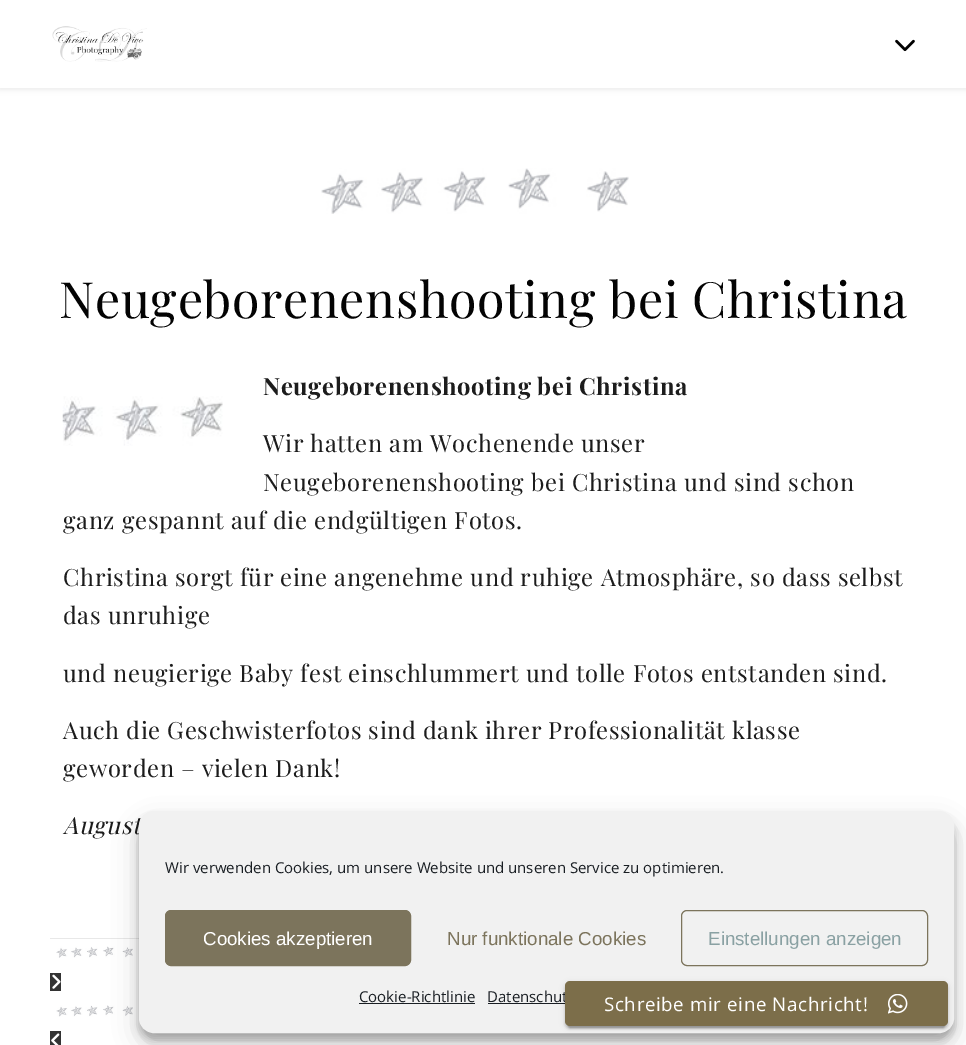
%!PS
<< /PageSize [966 1045] /PageUsesTransparency true >> setpagedevice
/mt/moveto load def
/fl/fill load def
/st/stroke load def
/gs/gsave load def
/gr/grestore load def
/co { dup -16 bitshift 255 div exch dup -8 bitshift 255 and 255 div exch 255 and 255 div setrgbcolor } def
/fn { [ exch dup neg 0 0 3 -1 roll 0 0 ] selectfont } def
/tx { co fn moveto show } def
/bx { co rectfill } def
/al { dup .setfillconstantalpha .setstrokeconstantalpha } def
/rr { 5 dict begin { /r /h /w /y /x } { exch def } forall
  x r add y moveto x w add y 2 copy h add r arct x w add y h add x 1 index r arct
  x y h add x y r arct x y 2 copy exch w add exch r arct closepath end } def
/sh { 12 dict begin { /a /b /q /h /w /y /x } { exch def } forall gsave /was 0 def
  9 -2 -9 { dup b mul 4 div /e exch def 1 sub .425 mul 2.718 exch exp 1 add a .99 .min exch div /now exch def
    1 1 now sub 1 was sub div sub al /was now def
    w h .min e 2 mul add 0 gt { x e sub y e sub w e 2 mul add h e 2 mul add
      q e add b .6 mul add w h .min 2 div e add .min 0 .max rr fill } if } for grestore end } def
/im { 5 dict begin { /h /w /y /x /name } { exch def } forall
  gsave x y translate w h scale
  w h 8 [w 0 0 h 0 0] name (r) file false 3 colorimage grestore end } def
0 .pushpdf14devicefilter
0 1045 translate 1 -1 scale
4 setmiterlimit
0 0 966 1045 16#FFFFFF bx
16#000000 co
0 1 966 88 0 3 .1 sh
0 0 966 88 16#FFFFFF bx
(media/1.raw) 52 26 95 36 im
(media/2.raw) 895 39 20 13 im
(media/3.raw) 321 168 308 46 im
(media/4.raw) 62 396 161 50 im
50 938 89 1 16#E8E8E8 bx
(media/5.raw) 56 946 77 12 im
50 973 11 18 16#333333 bx
(media/6.raw) 52 974 9 15 im
(media/7.raw) 56 1005 77 12 im
50 1031 11 14 16#333333 bx
(media/8.raw) 51 1033 9 12 im
16#000000 co
139 819 815 221 15 4 .23 sh
139 824 815 221 15 12.5 .19 sh
/PlayfairDisplay-Regular 50 fn
16#030303 co
59 318 mt .62 0 (Neugeborenenshooting bei Christina) ashow
/PlayfairDisplay-Bold 23.75 fn
16#1C1C1C co
263 395 mt .62 0 (Neugeborenenshooting bei Christina) ashow
/PlayfairDisplay-Regular 23.75 fn
263 452 mt .62 0 (Wir hatten am Wochenende unser) ashow
263 491 mt .62 0 (Neugeborenenshooting bei Christina und sind schon) ashow
63 529 mt .62 0 (ganz gespannt auf die endgültigen Fotos.) ashow
63 586 mt .62 0 (Christina sorgt für eine angenehme und ruhige Atmosphäre, so dass selbst) ashow
63 624 mt .62 0 (das unruhige) ashow
63 682 mt .62 0 (und neugierige Baby fest einschlummert und tolle Fotos entstanden sind.) ashow
63 739 mt .62 0 (Auch die Geschwisterfotos sind dank ihrer Professionalität klasse) ashow
63 777 mt .62 0 (geworden – vielen Dank!) ashow
/PlayfairDisplay-Italic 23.75 fn
63 834 mt .62 0 (August) ashow
16#F1F1F1 co
139.5 811.5 814 221 14.5 rr gs fl gr
st
(Wir verwenden Cookies, um unsere Website und unseren Service zu optimieren.) 165 873 /OpenSans-Regular 15 16#191E23 tx
16#7C745C co
165.5 910.5 245 55 5.5 rr gs fl gr
st
(Cookies akzeptieren) 203 945 /LiberationSans-Regular 18.75 16#FFFFFF tx
(Nur funktionale Cookies) 447 945 /LiberationSans-Regular 18.75 16#7C745C tx
681.5 910.5 246 55 5.5 rr st
(Einstellungen anzeigen) 708 945 /LiberationSans-Regular 18.75 16#8AA1A3 tx
(Cookie-Richtlinie) 359 1002 /OpenSans-Regular 15 16#191E23 tx
359 1003 116 1 16#191E23 bx
(Datenschut) 487 1002 /OpenSans-Regular 15 16#191E23 tx
488 1003 77 1 16#191E23 bx
16#000000 co
568 988 377 40 2.5 .5 .2 sh
565 983 383 45 5 3 .12 sh
565 984 383 45 5 1 .14 sh
16#7C6E4A co
565 981 383 45 5 rr fl
/OpenSans-Regular 18.75 fn
16#FFFFFF co
604 1011 mt .62 0 (Schreibe mir eine Nachricht!) ashow
(media/9.raw) 888 994 20 20 im
.poppdf14devicefilter showpage
